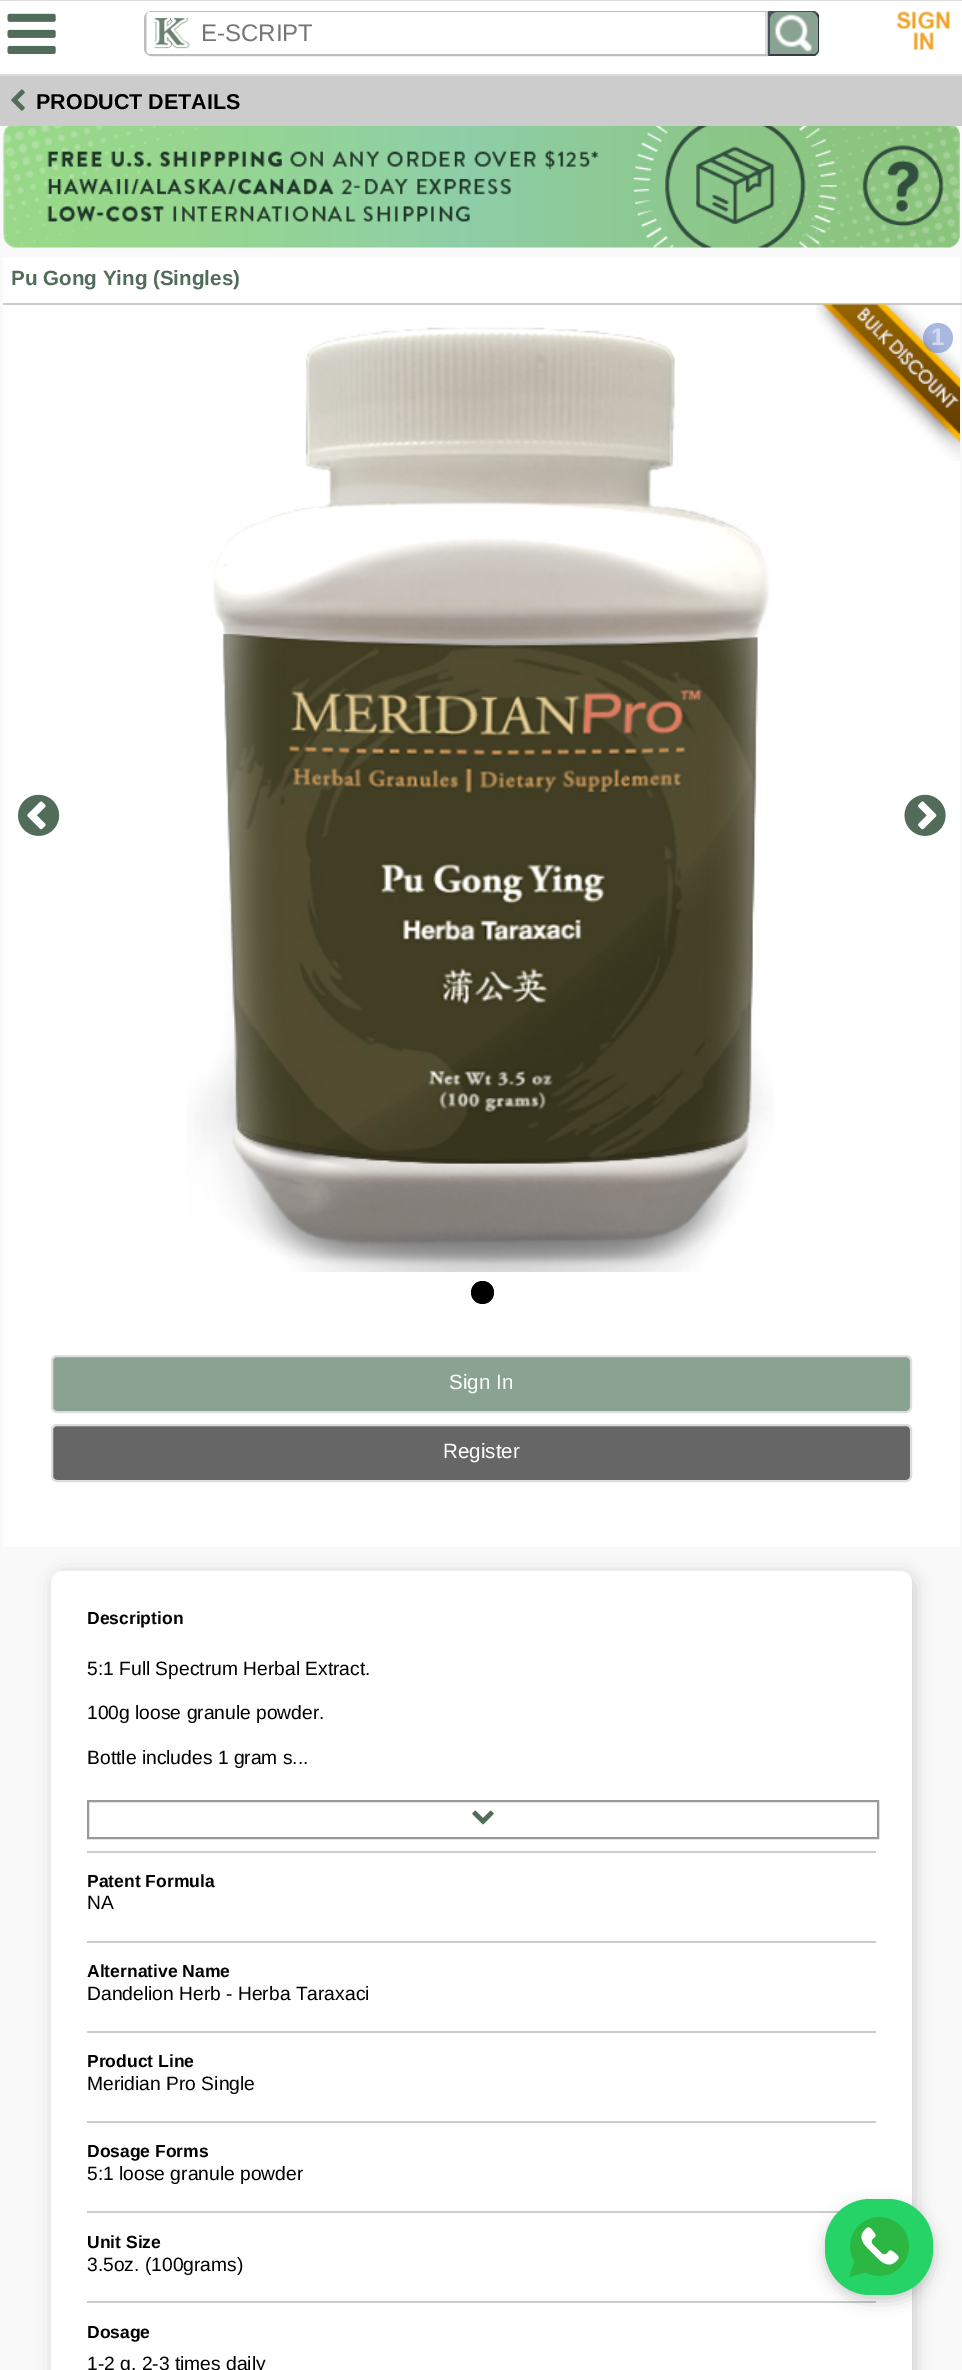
%!PS
<< /PageSize [962 2370] /PageUsesTransparency true >> setpagedevice
/mt/moveto load def
/li/lineto load def
/ct/curveto load def
/cp/closepath load def
/fl/fill load def
/st/stroke load def
/gs/gsave load def
/gr/grestore load def
/lw/setlinewidth load def
/co { dup -16 bitshift 255 div exch dup -8 bitshift 255 and 255 div exch 255 and 255 div setrgbcolor } def
/fn { [ exch dup neg 0 0 3 -1 roll 0 0 ] selectfont } def
/tx { co fn moveto show } def
/bx { co rectfill } def
/al { dup .setfillconstantalpha .setstrokeconstantalpha } def
/ci { newpath 0 360 arc closepath } def
/rr { 5 dict begin { /r /h /w /y /x } { exch def } forall
  x r add y moveto x w add y 2 copy h add r arct x w add y h add x 1 index r arct
  x y h add x y r arct x y 2 copy exch w add exch r arct closepath end } def
/sh { 12 dict begin { /a /b /q /h /w /y /x } { exch def } forall gsave /was 0 def
  9 -2 -9 { dup b mul 4 div /e exch def 1 sub .425 mul 2.718 exch exp 1 add a .99 .min exch div /now exch def
    1 1 now sub 1 was sub div sub al /was now def
    w h .min e 2 mul add 0 gt { x e sub y e sub w e 2 mul add h e 2 mul add
      q e add b .6 mul add w h .min 2 div e add .min 0 .max rr fill } if } for grestore end } def
/im { 5 dict begin { /h /w /y /x /name } { exch def } forall
  gsave x y translate w h scale
  w h 8 [w 0 0 h 0 0] name (r) file false 3 colorimage grestore end } def
0 .pushpdf14devicefilter
0 2370 translate 1 -1 scale
4 setmiterlimit
0 0 962 2370 16#F9F9F9 bx
0 1 962 73 16#FFFFFF bx
0 0 962 1 16#DDDDDD bx
0 74 962 2 16#DDDDDD bx
(media/1.raw) 7 13 49 41 im
16#BDBDBD co
2 lw
152 12 mt 767 12 li 767 55 li 152 55 li 148 55 145 52 145 48 ct 145 19 li 145 15 148 12 152 12 ct cp st
16#FFFFFF co
152 12 mt 767 12 li 767 54 li 152 54 li 148.5 54 146 51.5 146 48 ct 146 18 li 146 14.5 148.5 12 152 12 ct cp fl
16#DDDDDD co
146 18 mt 146 48 li 146 50 147 51 148 52 ct 148 14 li 147 15 146 16 146 18 ct cp 765 54 mt 767 54 li 767 12 li 765 12 li cp eofill
gs
152 12 mt 767 12 li 767 54 li 152 54 li 148.5 54 146 51.5 146 48 ct 146 18 li 146 14.5 148.5 12 152 12 ct cp clip newpath
16#FFFFFF co
155 8 mt 708 8 li 708 60 li 155 60 li 150.5 60 147 56.5 147 52 ct 147 16 li 147 11.5 150.5 8 155 8 ct cp fl
gr
(media/2.raw) 154 18 36 31 im
16#8AA292 co
768 11 mt 813 11 li 816.5 11 819 13.5 819 17 ct 819 50 li 819 53.5 816.5 56 813 56 ct 768 56 li cp fl
16#485059 co
817 13 mt 816 12 815 11 813 11 ct 768 11 li 790 33 li 796 33 li cp fl
16#2C3137 co
819 50 mt 819 51 818 53 817 54 ct 796 33 li 817 13 li 818 14 819 15 819 17 ct cp fl
16#363C43 co
768 56 mt 815 56 li 817 54 li 796 33 li 790 33 li cp fl
16#485059 co
768 56 mt 790 33 li 768 11 li cp fl
0 76 962 50 16#CCCCCC bx
gs
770 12 mt 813 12 li 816 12 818 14 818 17 ct 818 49 li 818 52 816 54 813 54 ct 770 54 li cp clip newpath
16#000000 co
770 14 48 57 8 2 .15 sh
gr
gs
770 12 mt 813 12 li 816 12 818 14 818 17 ct 818 49 li 818 52 816 54 813 54 ct 770 54 li cp clip newpath
16#8AA292 co
778 12 mt 810 12 li 814.5 12 818 15.5 818 20 ct 818 49 li 818 52 816 54 813 54 ct 770 54 li 770 20 li 770 15.5 773.5 12 778 12 ct cp fl
gr
(media/3.raw) 775 14 37 38 im
(media/4.raw) 896 11 54 39 im
(media/5.raw) 11 89 14 22 im
(media/6.raw) 3 126 957 122 im
3 257 957 1290 16#FFFFFF bx
3 303 959 2 16#CCCCCC bx
(media/7.raw) 816 304 144 157 im
(media/8.raw) 187 327 587 945 im
0.5 al
16#5574C5 co
938 338 15 ci fl
1 al
(media/9.raw) 18 794 42 42 im
(media/10.raw) 904 794 42 42 im
16#000000 co
482.5 1292.5 11.5 ci fl
16#8AA292 co
52 1356 859 56 5 rr gs fl gr
16#DDDDDD co
st
16#666666 co
52 1425 859 56 5 rr gs fl gr
16#DDDDDD co
st
16#CCCCCC co
54 1574 861 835 12 9 1 sh
16#FFFFFF co
51 1571 861 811 12 rr fl
87 1851 789 2 16#CCCCCC bx
16#999999 co
88 1801 790 37 rectstroke
(media/11.raw) 472 1810 22 15 im
87 1941 789 2 16#CCCCCC bx
87 2031 789 2 16#CCCCCC bx
87 2121 789 2 16#CCCCCC bx
87 2211 753 2 16#CCCCCC bx
87 2301 789 2 16#CCCCCC bx
16#000000 co
825 2205 108 96 45 7.5 .2 sh
16#25D366 co
825 2199 108 96 45 rr fl
(media/12.raw) 849 2217 60 60 im
(E-SCRIPT) 201 41 /LiberationSans-Regular 24 16#757575 tx
(PRODUCT DETAILS) 36 109 /LiberationSans-Bold 21.5 16#000000 tx
(Pu Gong Ying \(Singles\)) 11 285 /LiberationSans-Bold 20.6 16#526C5A tx
(1) 931 345 /LiberationSans-Bold 24 16#D3DBEF tx
(Sign In) 449 1389 /LiberationSans-Regular 20.6 16#FFFFFF tx
(Register) 443 1458 /LiberationSans-Regular 20.6 16#FFFFFF tx
(Description) 87 1624 /LiberationSans-Bold 17.5 16#000000 tx
(5:1 Full Spectrum Herbal Extract.) 87 1675 /LiberationSans-Regular 19.25 16#000000 tx
(100g loose granule powder.) 87 1719 /LiberationSans-Regular 19.25 16#000000 tx
(Bottle includes 1 gram s...) 87 1764 /LiberationSans-Regular 19.25 16#000000 tx
(Patent Formula) 87 1887 /LiberationSans-Bold 17.5 16#000000 tx
(NA) 87 1909 /LiberationSans-Regular 19.25 16#000000 tx
(Alternative Name) 87 1977 /LiberationSans-Bold 17.5 16#000000 tx
(Dandelion Herb - Herba Taraxaci) 87 2000 /LiberationSans-Regular 19.25 16#000000 tx
(Product Line) 87 2067 /LiberationSans-Bold 17.5 16#000000 tx
(Meridian Pro Single) 87 2090 /LiberationSans-Regular 19.25 16#000000 tx
(Dosage Forms) 87 2157 /LiberationSans-Bold 17.5 16#000000 tx
(5:1 loose granule powder) 87 2180 /LiberationSans-Regular 19.25 16#000000 tx
(Unit Size) 87 2248 /LiberationSans-Bold 17.5 16#000000 tx
(3.5oz. \(100grams\)) 87 2271 /LiberationSans-Regular 19.25 16#000000 tx
(Dosage) 87 2338 /LiberationSans-Bold 17.5 16#000000 tx
(1-2 g, 2-3 times daily) 87 2370 /LiberationSans-Regular 19.25 16#000000 tx
.poppdf14devicefilter showpage
